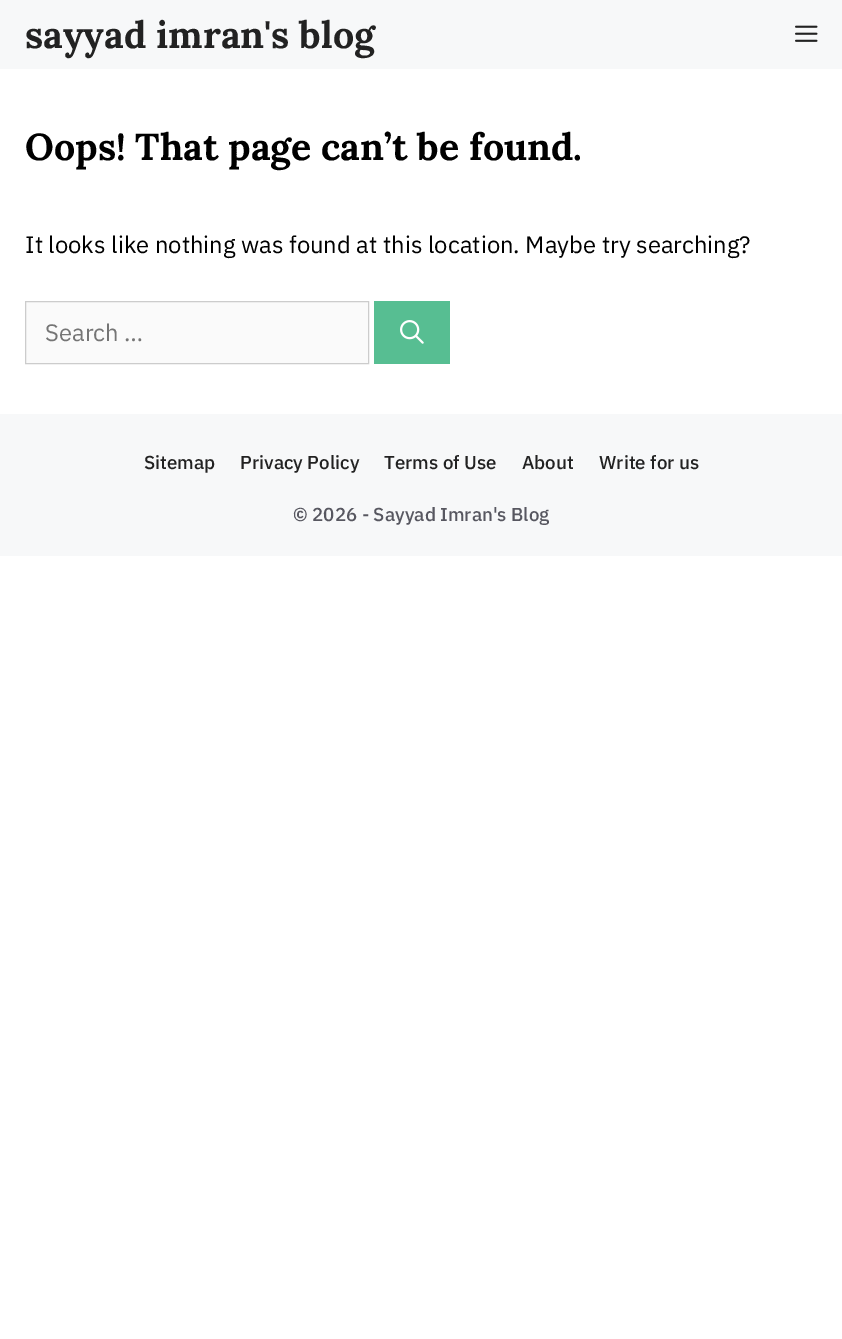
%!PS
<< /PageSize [842 1339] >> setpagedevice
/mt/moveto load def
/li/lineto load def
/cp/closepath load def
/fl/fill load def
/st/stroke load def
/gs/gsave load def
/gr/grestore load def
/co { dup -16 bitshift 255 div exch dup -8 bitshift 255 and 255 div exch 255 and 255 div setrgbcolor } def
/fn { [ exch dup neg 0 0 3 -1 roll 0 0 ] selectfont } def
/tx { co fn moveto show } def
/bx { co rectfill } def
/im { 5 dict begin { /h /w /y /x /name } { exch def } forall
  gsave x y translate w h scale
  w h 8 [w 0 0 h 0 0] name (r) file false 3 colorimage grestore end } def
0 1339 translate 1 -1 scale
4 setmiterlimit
0 0 842 1339 16#FFFFFF bx
0 0 842 69 16#F7F8F9 bx
(media/1.raw) 795 25 23 17 im
16#FAFAFA co
25.5 301.5 mt 368.5 301.5 li 368.5 363.5 li 25.5 363.5 li cp gs fl gr
16#CCCCCC co
st
374 301 76 63 16#57BE92 bx
(media/2.raw) 400 320 24 24 im
0 414 842 142 16#F7F8F9 bx
(sayyad imran's blog) 25 48 /Lora-Bold 37.5 16#222222 tx
(Oops! That page can’t be found.) 25 160 /Lora-Bold 37.5 16#000000 tx
(It looks like nothing was found at this location. Maybe try searching?) 25 253 /IBMPlexSans-Regular 23.75 16#000000 tx
(Search …) 45 341 /IBMPlexSans-Regular 23.75 16#757575 tx
(Sitemap) 144 469 /IBMPlexSans-Medium 18.75 16#222222 tx
(Privacy Policy) 240 469 /IBMPlexSans-Medium 18.75 16#222222 tx
(Terms of Use) 384 469 /IBMPlexSans-Medium 18.75 16#222222 tx
(About) 522 469 /IBMPlexSans-Medium 18.75 16#222222 tx
(Write for us) 599 469 /IBMPlexSans-Medium 18.75 16#222222 tx
(© 2026 - Sayyad Imran's Blog) 293 521 /IBMPlexSans-Medium 18.75 16#575760 tx
showpage
